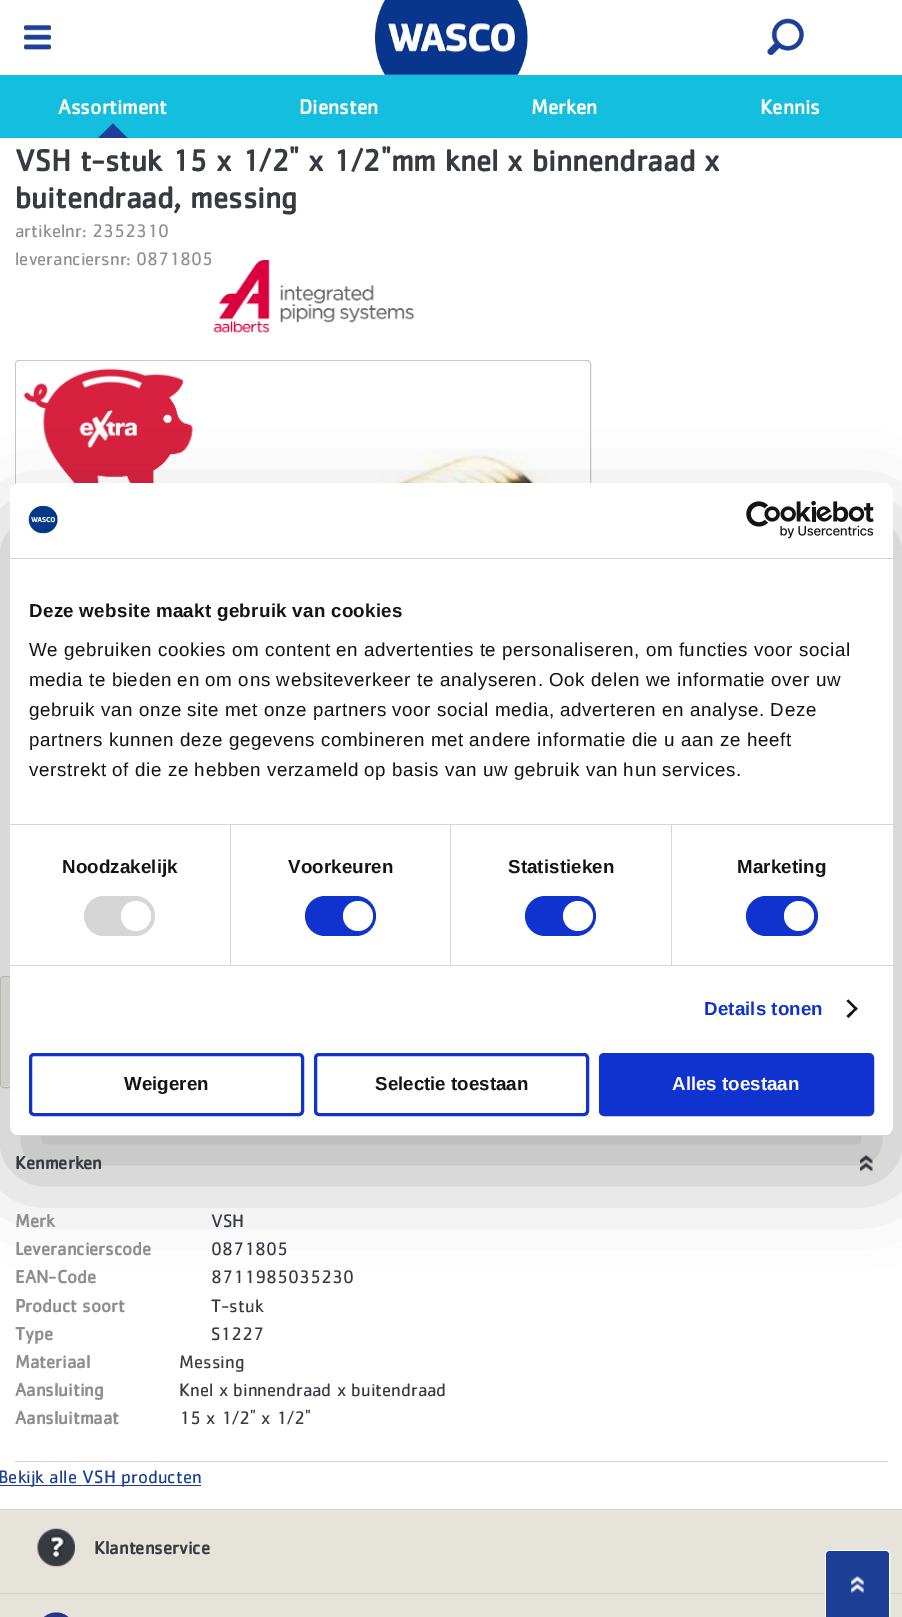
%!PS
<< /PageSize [902 1617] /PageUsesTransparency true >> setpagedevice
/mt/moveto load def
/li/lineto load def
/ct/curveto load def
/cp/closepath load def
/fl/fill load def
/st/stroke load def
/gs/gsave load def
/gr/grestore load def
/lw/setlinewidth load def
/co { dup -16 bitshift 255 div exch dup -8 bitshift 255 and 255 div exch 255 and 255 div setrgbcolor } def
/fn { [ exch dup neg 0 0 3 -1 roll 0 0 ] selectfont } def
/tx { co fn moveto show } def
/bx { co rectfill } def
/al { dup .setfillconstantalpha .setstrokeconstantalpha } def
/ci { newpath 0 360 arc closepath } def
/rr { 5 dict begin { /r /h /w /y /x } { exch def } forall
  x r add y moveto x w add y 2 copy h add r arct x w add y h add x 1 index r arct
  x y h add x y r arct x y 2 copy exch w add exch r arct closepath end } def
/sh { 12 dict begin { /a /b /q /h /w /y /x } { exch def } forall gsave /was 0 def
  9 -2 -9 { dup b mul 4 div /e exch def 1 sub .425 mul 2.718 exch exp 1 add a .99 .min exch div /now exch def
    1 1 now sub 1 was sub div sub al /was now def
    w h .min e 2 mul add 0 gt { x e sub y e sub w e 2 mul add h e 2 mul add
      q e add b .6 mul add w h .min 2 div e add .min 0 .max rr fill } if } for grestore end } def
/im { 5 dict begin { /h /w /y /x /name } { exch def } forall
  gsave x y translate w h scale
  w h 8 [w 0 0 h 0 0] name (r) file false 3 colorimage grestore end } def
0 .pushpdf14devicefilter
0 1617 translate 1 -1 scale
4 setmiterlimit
0 0 902 1617 16#FFFFFF bx
24 24 27 26 16#1D3F94 bx
(media/1.raw) 24 24 27 27 im
(media/2.raw) 375 0 153 75 im
(media/3.raw) 767 18 37 37 im
0 75 902 63 16#13BEDF bx
gs
0 75 226 63 rectclip
16#1C3F95 co
113 123.5 mt 130.5 141 li 113 159 li 95 141 li cp fl
gr
(media/4.raw) 213 260 201 73 im
16#C8C8BE co
15.5 360.5 575 570 3.5 rr st
(media/5.raw) 16 361 569 123 im
(media/6.raw) 23 368 170 115 im
16#D4D4D4 co
.5 976.5 887 111 3.5 rr st
1 978 9 108 16#F5F3ED bx
15 1461 873 1 16#D4D4D4 bx
(media/7.raw) 860 1155 13 17 im
0 1485 201 1 16#1C3F95 bx
0 1510 902 107 16#E6E3DA bx
0 1509 902 1 16#D4D4D4 bx
(media/8.raw) 37 1528 38 39 im
0 1593 902 1 16#D4D4D4 bx
(media/9.raw) 44 1612 25 5 im
16#FFFFFF co
830 1550.5 mt 885 1550.5 li 887.5 1550.5 889.5 1552.5 889.5 1555 ct 889.5 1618.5 li 825.5 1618.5 li 825.5 1555 li 825.5 1552.5 827.5 1550.5 830 1550.5 ct cp st
16#1C3F95 co
830 1551 mt 885 1551 li 887 1551 889 1553 889 1555 ct 889 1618 li 826 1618 li 826 1555 li 826 1553 828 1551 830 1551 ct cp fl
(media/10.raw) 851 1576 13 18 im
830 1551 mt 885 1551 li 887 1551 889 1553 889 1555 ct 889 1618 li 826 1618 li 826 1555 li 826 1553 828 1551 830 1551 ct cp 851 1576 mt 864 1576 li 864 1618 li 851 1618 li cp eofill
16#000000 co
10 523 883 653 10 42.5 .3 sh
16#FFFFFF co
10 483 883 653 10 rr fl
10 558 883 1 16#D6D6D6 bx
(media/11.raw) 28 505 30 29 im
(media/12.raw) 746 501 128 38 im
10 824 883 1 16#D6D6D6 bx
10 965 883 1 16#D6D6D6 bx
230 825 1 140 16#D6D6D6 bx
84 896 71 40 20 rr fl
16#FFFFFF co
136 916 15 ci fl
450 825 1 140 16#D6D6D6 bx
16#1032CF co
305 896 71 40 20 rr fl
16#FFFFFF co
358 916 15 ci fl
671 825 1 140 16#D6D6D6 bx
16#1032CF co
525 896 71 40 20 rr fl
16#FFFFFF co
578 916 15 ci fl
16#1032CF co
746 896 72 40 20 rr fl
16#FFFFFF co
799 916 15 ci fl
16#141414 co
848.5 999.5 mt 857.5 1008.5 li 856 1010.5 li 846.5 1001 li cp fl
856 1007 mt 857.5 1008.5 li 848.5 1018 li 846.5 1016 li cp fl
gs
10 483 883 653 10 rr clip newpath
10 1135 883 1 16#D6D6D6 bx
gr
16#1032CF co
3 lw
30.5 1054.5 272 60 3.5 rr st
315.5 1054.5 272 60 3.5 rr st
600.5 1054.5 272 60 3.5 rr gs fl gr
st
(Assortiment) 58 114 /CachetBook-Bold 21.25 16#FFFFFF tx
(Diensten) 299 114 /CachetBook-Bold 21.25 16#FFFFFF tx
(Merken) 531 114 /CachetBook-Bold 21.25 16#FFFFFF tx
(Kennis) 760 114 /CachetBook-Bold 21.25 16#FFFFFF tx
(VSH t-stuk 15 x 1/2" x 1/2"mm knel x binnendraad x) 15 171 /CachetBook-Bold 31.25 16#373A41 tx
(buitendraad, messing) 15 208 /CachetBook-Bold 31.25 16#373A41 tx
(artikelnr: 2352310) 15 237 /CachetBook-Regular 18.75 16#8E8E8E tx
(leveranciersnr: 0871805) 15 265 /CachetBook-Regular 18.75 16#8E8E8E tx
(Kenmerken) 15 1169 /CachetBook-Bold 18.75 16#373A41 tx
(Merk) 15 1227 /CachetBook-Bold 18.75 16#8E8E8E tx
(VSH) 211 1227 /CachetBook-Regular 18.75 16#373A41 tx
(Leverancierscode) 15 1255 /CachetBook-Bold 18.75 16#8E8E8E tx
(0871805) 211 1255 /CachetBook-Regular 18.75 16#373A41 tx
(EAN-Code) 15 1283 /CachetBook-Bold 18.75 16#8E8E8E tx
(8711985035230) 211 1283 /CachetBook-Regular 18.75 16#373A41 tx
(Product soort) 15 1312 /CachetBook-Bold 18.75 16#8E8E8E tx
(T-stuk) 211 1312 /CachetBook-Regular 18.75 16#373A41 tx
(Type) 15 1340 /CachetBook-Bold 18.75 16#8E8E8E tx
(S1227) 211 1340 /CachetBook-Regular 18.75 16#373A41 tx
(Materiaal) 15 1368 /CachetBook-Bold 18.75 16#8E8E8E tx
(Messing) 179 1368 /CachetBook-Regular 18.75 16#373A41 tx
(Aansluiting) 15 1396 /CachetBook-Bold 18.75 16#8E8E8E tx
(Knel x binnendraad x buitendraad) 179 1396 /CachetBook-Regular 18.75 16#373A41 tx
(Aansluitmaat) 15 1424 /CachetBook-Bold 18.75 16#8E8E8E tx
(15 x 1/2" x 1/2") 179 1424 /CachetBook-Regular 18.75 16#373A41 tx
(Bekijk alle VSH producten) -2 1483 /CachetBook-Regular 18.75 16#1C3F95 tx
(Klantenservice) 94 1554 /CachetBook-Bold 18.75 16#373A41 tx
/LiberationSans-Bold 18.75 fn
16#141414 co
29 617 mt .3 0 (Deze website maakt gebruik van cookies) ashow
/LiberationSans-Regular 18.75 fn
29 656 mt .62 0 (We gebruiken cookies om content en advertenties te personaliseren, om functies voor social) ashow
29 686 mt .62 0 (media te bieden en om ons websiteverkeer te analyseren. Ook delen we informatie over uw) ashow
29 716 mt .62 0 (gebruik van onze site met onze partners voor social media, adverteren en analyse. Deze) ashow
29 746 mt .62 0 (partners kunnen deze gegevens combineren met andere informatie die u aan ze heeft) ashow
29 776 mt .62 0 (verstrekt of die ze hebben verzameld op basis van uw gebruik van hun services.) ashow
/LiberationSans-Bold 18.75 fn
62 873 mt .1 0 (Noodzakelijk) ashow
288 873 mt .1 0 (Voorkeuren) ashow
508 873 mt .1 0 (Statistieken) ashow
737 873 mt .1 0 (Marketing) ashow
16#1032CF co
704 1015 mt .1 0 (Details tonen) ashow
(Weigeren) 124 1090 /LiberationSans-Bold 18.75 16#141414 tx
(Selectie toestaan) 375 1090 /LiberationSans-Bold 18.75 16#141414 tx
(Alles toestaan) 672 1090 /LiberationSans-Bold 18.75 16#FFFFFF tx
.poppdf14devicefilter showpage
